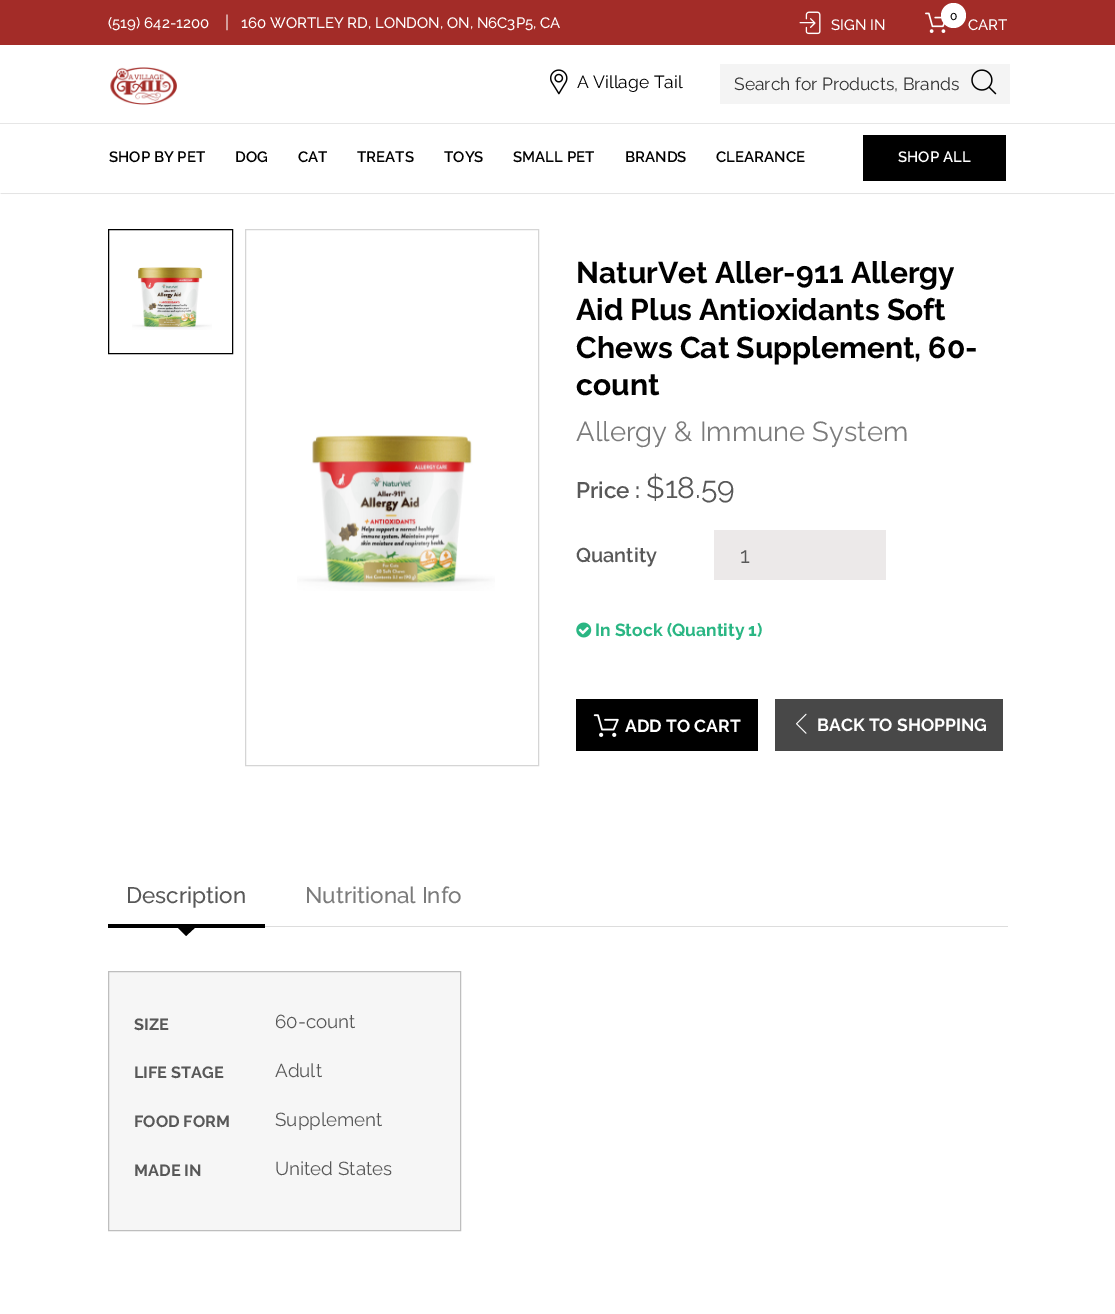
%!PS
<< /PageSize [1115 1314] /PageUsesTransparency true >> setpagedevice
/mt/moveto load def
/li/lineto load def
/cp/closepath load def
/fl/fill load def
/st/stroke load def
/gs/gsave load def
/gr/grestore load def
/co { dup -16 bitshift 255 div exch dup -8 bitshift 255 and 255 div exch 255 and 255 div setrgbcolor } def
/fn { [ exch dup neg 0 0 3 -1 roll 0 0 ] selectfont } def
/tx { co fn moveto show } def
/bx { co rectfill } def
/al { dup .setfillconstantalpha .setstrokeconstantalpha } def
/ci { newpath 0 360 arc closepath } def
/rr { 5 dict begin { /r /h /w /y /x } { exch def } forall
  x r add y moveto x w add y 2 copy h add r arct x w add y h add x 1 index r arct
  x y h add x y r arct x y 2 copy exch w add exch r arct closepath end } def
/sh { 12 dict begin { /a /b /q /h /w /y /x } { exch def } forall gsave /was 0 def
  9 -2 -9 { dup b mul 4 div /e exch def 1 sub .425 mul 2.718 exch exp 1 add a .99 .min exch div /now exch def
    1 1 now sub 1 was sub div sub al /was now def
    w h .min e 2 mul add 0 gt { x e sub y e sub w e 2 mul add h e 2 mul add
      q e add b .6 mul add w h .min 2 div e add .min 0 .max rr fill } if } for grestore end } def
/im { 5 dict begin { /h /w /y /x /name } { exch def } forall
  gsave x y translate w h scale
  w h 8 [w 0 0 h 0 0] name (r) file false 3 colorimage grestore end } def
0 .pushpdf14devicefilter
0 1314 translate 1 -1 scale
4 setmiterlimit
0 0 1115 1314 16#FFFFFF bx
gs
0 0 mt 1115 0 li 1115 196 li 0 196 li cp 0 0 mt 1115 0 li 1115 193 li 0 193 li cp eoclip newpath
16#9D9D9D co
1 3 1113 190 0 .5 1 sh
gr
0 0 1115 45 16#A32C28 bx
(media/1.raw) 799 11 22 24 im
(media/2.raw) 925 12 21 21 im
16#FFFFFF co
953.5 15.5 12.5 ci fl
0 123 1115 1 16#E6E6E6 bx
(media/3.raw) 110 67 67 38 im
(media/4.raw) 550 69 18 26 im
720 64 290 40 16#F4F4F4 bx
(media/5.raw) 971 69 26 26 im
0.9 al
0 192 1115 1 16#FFFFFF bx
1 al
863 135 143 46 16#000000 bx
108.5 229.5 124 124 rectstroke
(media/6.raw) 132 267 80 63 im
16#D5D5D5 co
245.5 229.5 293 536 rectstroke
(media/7.raw) 297 435 198 156 im
714 530 172 50 16#ECE9E9 bx
(media/8.raw) 576 622 16 16 im
576 699 182 52 16#000000 bx
(media/9.raw) 593 714 26 23 im
775 699 228 52 16#484848 bx
(media/10.raw) 796 713 11 21 im
265 926 743 1 16#DDDDDD bx
108 924 157 4 16#000000 bx
174 924 mt 199 924 li 186 936 li cp fl
16#F6F6F6 co
108.5 971.5 mt 460.5 971.5 li 460.5 1230.5 li 108.5 1230.5 li cp gs fl gr
16#BEBEBE co
st
(\(519\) 642-1200) 108 28 /Raleway-Medium 15 16#FFFFFF tx
(|) 225 28 /Raleway-Regular 17.5 16#FFFFFF tx
(160 WORTLEY RD, LONDON, ON, N6C3P5, CA) 241 28 /Raleway-Medium 15 16#FFFFFF tx
(SIGN IN) 831 30 /Raleway-Medium 15 16#FFFFFF tx
(0) 950 20 /Raleway-Medium 12 16#000000 tx
(CART) 968 30 /Raleway-Medium 15 16#FFFFFF tx
(A Village Tail) 577 88 /Raleway-Regular 17.5 16#000000 tx
(Search for Products, Brands) 734 90 /Raleway-Regular 17.5 16#313131 tx
(SHOP BY PET) 109 162 /Raleway-SemiBold 15 16#000000 tx
(DOG) 235 162 /Raleway-SemiBold 15 16#000000 tx
(CAT) 298 162 /Raleway-SemiBold 15 16#000000 tx
(TREATS) 357 162 /Raleway-SemiBold 15 16#000000 tx
(TOYS) 444 162 /Raleway-SemiBold 15 16#000000 tx
(SMALL PET) 513 162 /Raleway-SemiBold 15 16#000000 tx
(BRANDS) 625 162 /Raleway-SemiBold 15 16#000000 tx
(CLEARANCE) 716 162 /Raleway-SemiBold 15 16#000000 tx
(SHOP ALL) 898 162 /Raleway-SemiBold 15 16#FFFFFF tx
(NaturVet Aller-911 Allergy) 576 283 /Raleway-Bold 30 16#000000 tx
(Aid Plus Antioxidants Soft) 576 320 /Raleway-Bold 30 16#000000 tx
(Chews Cat Supplement, 60-) 576 358 /Raleway-Bold 30 16#000000 tx
(count) 576 395 /Raleway-Bold 30 16#000000 tx
(Allergy & Immune System) 576 441 /Raleway-Regular 27.5 16#7B7B7B tx
(Price :) 576 498 /Raleway-SemiBold 22.5 16#585858 tx
($18.59) 646 498 /Raleway-Regular 30 16#585858 tx
(Quantity) 576 562 /Raleway-SemiBold 20 16#585858 tx
(1) 740 563 /Raleway-Regular 22.5 16#585858 tx
(In Stock \(Quantity 1\)) 595 636 /Raleway-Bold 17.5 16#2AB683 tx
(ADD TO CART) 625 732 /Raleway-Bold 17.5 16#FFFFFF tx
(BACK TO SHOPPING) 817 731 /Raleway-Bold 17.5 16#FFFFFF tx
(Description) 126 903 /Raleway-Medium 22.5 16#585858 tx
(Nutritional Info) 305 903 /Raleway-Medium 22.5 16#7B7B7B tx
(SIZE) 134 1030 /Raleway-Bold 16.25 16#585858 tx
(60-count) 275 1028 /Raleway-Regular 18.75 16#585858 tx
(LIFE STAGE) 134 1078 /Raleway-Bold 16.25 16#585858 tx
(Adult) 275 1077 /Raleway-Regular 18.75 16#585858 tx
(FOOD FORM) 134 1127 /Raleway-Bold 16.25 16#585858 tx
(Supplement) 275 1126 /Raleway-Regular 18.75 16#585858 tx
(MADE IN) 134 1176 /Raleway-Bold 16.25 16#585858 tx
(United States) 275 1175 /Raleway-Regular 18.75 16#585858 tx
.poppdf14devicefilter showpage
